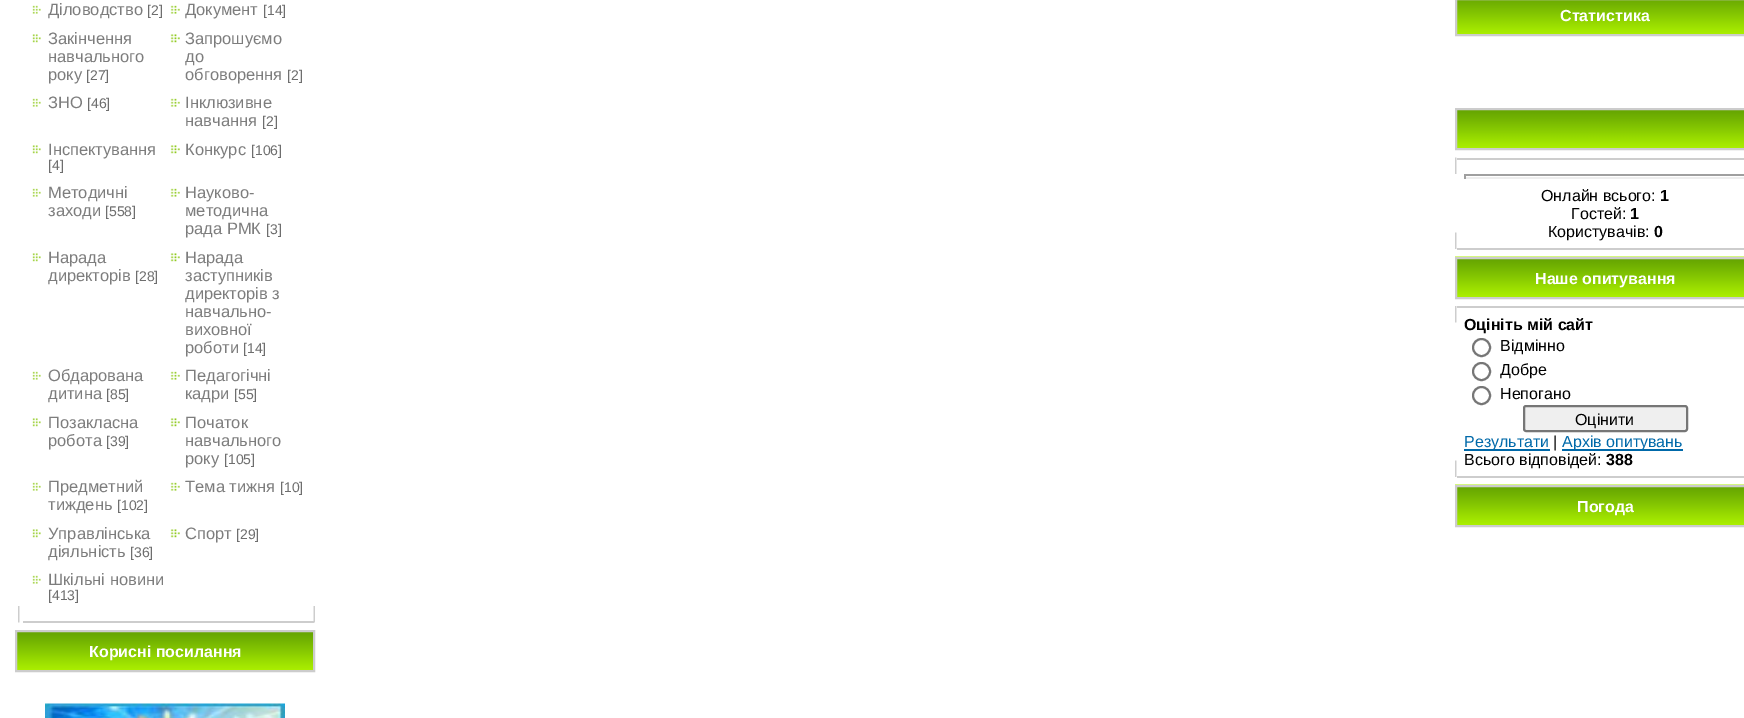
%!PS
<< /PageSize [1744 718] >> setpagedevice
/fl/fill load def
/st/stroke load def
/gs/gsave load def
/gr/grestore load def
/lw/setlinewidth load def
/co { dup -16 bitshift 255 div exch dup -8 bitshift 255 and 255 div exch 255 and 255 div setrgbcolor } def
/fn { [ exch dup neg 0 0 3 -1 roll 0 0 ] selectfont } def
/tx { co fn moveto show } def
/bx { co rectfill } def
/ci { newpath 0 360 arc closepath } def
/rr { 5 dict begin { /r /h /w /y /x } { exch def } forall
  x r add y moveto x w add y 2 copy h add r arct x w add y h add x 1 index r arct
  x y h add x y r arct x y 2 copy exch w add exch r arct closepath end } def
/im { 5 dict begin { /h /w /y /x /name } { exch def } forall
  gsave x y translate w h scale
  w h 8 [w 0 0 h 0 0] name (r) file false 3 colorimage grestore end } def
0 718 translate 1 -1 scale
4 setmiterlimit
0 0 1744 718 16#FFFFFF bx
23 621 291 2 16#CDCDCD bx
(media/1.raw) 32 5 9 9 im
(media/2.raw) 170 5 10 9 im
(media/3.raw) 32 34 9 9 im
(media/4.raw) 170 34 10 9 im
(media/1.raw) 32 98 9 9 im
(media/2.raw) 170 98 10 9 im
(media/3.raw) 32 145 9 9 im
(media/4.raw) 170 145 10 9 im
(media/1.raw) 32 188 9 9 im
(media/2.raw) 170 188 10 9 im
(media/3.raw) 32 253 9 9 im
(media/4.raw) 170 253 10 9 im
(media/1.raw) 32 371 9 9 im
(media/2.raw) 170 371 10 9 im
(media/3.raw) 32 418 9 9 im
(media/4.raw) 170 418 10 9 im
(media/1.raw) 32 482 9 9 im
(media/2.raw) 170 482 10 9 im
(media/3.raw) 32 529 9 9 im
(media/4.raw) 170 529 10 9 im
(media/1.raw) 32 575 9 9 im
(media/5.raw) 18 606 2 17 im
(media/6.raw) 313 606 2 17 im
(media/7.raw) 17 632 296 38 im
16#CCCCCC co
2 lw
16 631 298 40 rectstroke
(media/8.raw) 45 703 240 15 im
(media/9.raw) 1457 0 287 34 im
1456 -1 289 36 rectstroke
(media/10.raw) 1457 110 287 38 im
1456 109 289 40 rectstroke
(media/11.raw) 1455 232 2 17 im
(media/11.raw) 1455 157 2 17 im
1457 158 287 2 16#CDCDCD bx
1457 248 287 2 16#CDCDCD bx
1464 174 280 2 16#9F9F9F bx
1464 177 280 2 16#EEEEEE bx
1464 174 2 5 16#9F9F9F bx
(media/12.raw) 1455 256 289 41 im
16#CCCCCC co
1456 258 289 40 rectstroke
(media/11.raw) 1455 460 2 17 im
(media/5.raw) 1455 306 2 17 im
1457 306 287 2 16#CDCDCD bx
1457 476 287 2 16#CDCDCD bx
16#767676 co
1481.5 347.5 8.5 ci st
1481.5 371.5 8.5 ci st
1481.5 395.5 8.5 ci st
16#EFEFEF co
1524 406 163 25 2 rr gs fl gr
16#767676 co
st
1464 449 86 2 16#0069A9 bx
1562 449 121 2 16#0069A9 bx
(media/13.raw) 1455 484 289 41 im
16#CCCCCC co
1456 486 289 40 rectstroke
(Діловодство) 48 15 /LiberationSans-Regular 16.5 16#7D7D7D tx
([2]) 147 15 /LiberationSans-Regular 14 16#6E6E6E tx
(Документ) 185 15 /LiberationSans-Regular 16.5 16#7D7D7D tx
([14]) 263 15 /LiberationSans-Regular 14 16#6E6E6E tx
(Закінчення) 48 44 /LiberationSans-Regular 16.5 16#7D7D7D tx
(навчального) 48 62 /LiberationSans-Regular 16.5 16#7D7D7D tx
(року) 48 80 /LiberationSans-Regular 16.5 16#7D7D7D tx
([27]) 86 80 /LiberationSans-Regular 14 16#6E6E6E tx
(Запрошуємо) 185 44 /LiberationSans-Regular 16.5 16#7D7D7D tx
(до) 185 62 /LiberationSans-Regular 16.5 16#7D7D7D tx
(обговорення) 185 80 /LiberationSans-Regular 16.5 16#7D7D7D tx
([2]) 287 80 /LiberationSans-Regular 14 16#6E6E6E tx
(ЗНО) 48 108 /LiberationSans-Regular 16.5 16#7D7D7D tx
([46]) 87 108 /LiberationSans-Regular 14 16#6E6E6E tx
(Інклюзивне) 185 108 /LiberationSans-Regular 16.5 16#7D7D7D tx
(навчання) 185 126 /LiberationSans-Regular 16.5 16#7D7D7D tx
([2]) 262 126 /LiberationSans-Regular 14 16#6E6E6E tx
(Інспектування) 48 155 /LiberationSans-Regular 16.5 16#7D7D7D tx
([4]) 48 170 /LiberationSans-Regular 14 16#6E6E6E tx
(Конкурс) 185 155 /LiberationSans-Regular 16.5 16#7D7D7D tx
([106]) 251 155 /LiberationSans-Regular 14 16#6E6E6E tx
(Методичні) 48 198 /LiberationSans-Regular 16.5 16#7D7D7D tx
(заходи) 48 216 /LiberationSans-Regular 16.5 16#7D7D7D tx
([558]) 105 216 /LiberationSans-Regular 14 16#6E6E6E tx
(Науково-) 185 198 /LiberationSans-Regular 16.5 16#7D7D7D tx
(методична) 185 216 /LiberationSans-Regular 16.5 16#7D7D7D tx
(рада РМК) 185 234 /LiberationSans-Regular 16.5 16#7D7D7D tx
([3]) 266 234 /LiberationSans-Regular 14 16#6E6E6E tx
(Нарада) 48 263 /LiberationSans-Regular 16.5 16#7D7D7D tx
(директорів) 48 281 /LiberationSans-Regular 16.5 16#7D7D7D tx
([28]) 135 281 /LiberationSans-Regular 14 16#6E6E6E tx
(Нарада) 185 263 /LiberationSans-Regular 16.5 16#7D7D7D tx
(заступників) 185 281 /LiberationSans-Regular 16.5 16#7D7D7D tx
(директорів з) 185 299 /LiberationSans-Regular 16.5 16#7D7D7D tx
(навчально-) 185 317 /LiberationSans-Regular 16.5 16#7D7D7D tx
(виховної) 185 335 /LiberationSans-Regular 16.5 16#7D7D7D tx
(роботи) 185 353 /LiberationSans-Regular 16.5 16#7D7D7D tx
([14]) 243 353 /LiberationSans-Regular 14 16#6E6E6E tx
(Обдарована) 48 381 /LiberationSans-Regular 16.5 16#7D7D7D tx
(дитина) 48 399 /LiberationSans-Regular 16.5 16#7D7D7D tx
([85]) 106 399 /LiberationSans-Regular 14 16#6E6E6E tx
(Педагогічні) 185 381 /LiberationSans-Regular 16.5 16#7D7D7D tx
(кадри) 185 399 /LiberationSans-Regular 16.5 16#7D7D7D tx
([55]) 234 399 /LiberationSans-Regular 14 16#6E6E6E tx
(Позакласна) 48 428 /LiberationSans-Regular 16.5 16#7D7D7D tx
(робота) 48 446 /LiberationSans-Regular 16.5 16#7D7D7D tx
([39]) 106 446 /LiberationSans-Regular 14 16#6E6E6E tx
(Початок) 185 428 /LiberationSans-Regular 16.5 16#7D7D7D tx
(навчального) 185 446 /LiberationSans-Regular 16.5 16#7D7D7D tx
(року) 185 464 /LiberationSans-Regular 16.5 16#7D7D7D tx
([105]) 224 464 /LiberationSans-Regular 14 16#6E6E6E tx
(Предметний) 48 492 /LiberationSans-Regular 16.5 16#7D7D7D tx
(тиждень) 48 510 /LiberationSans-Regular 16.5 16#7D7D7D tx
([102]) 117 510 /LiberationSans-Regular 14 16#6E6E6E tx
(Тема тижня) 185 492 /LiberationSans-Regular 16.5 16#7D7D7D tx
([10]) 280 492 /LiberationSans-Regular 14 16#6E6E6E tx
(Управлінська) 48 539 /LiberationSans-Regular 16.5 16#7D7D7D tx
(діяльність) 48 557 /LiberationSans-Regular 16.5 16#7D7D7D tx
([36]) 130 557 /LiberationSans-Regular 14 16#6E6E6E tx
(Спорт) 185 539 /LiberationSans-Regular 16.5 16#7D7D7D tx
([29]) 236 539 /LiberationSans-Regular 14 16#6E6E6E tx
(Шкільні новини) 48 585 /LiberationSans-Regular 16.5 16#7D7D7D tx
([413]) 48 600 /LiberationSans-Regular 14 16#6E6E6E tx
(Корисні посилання) 89 657 /LiberationSans-Bold 16 16#FFFFFF tx
(Статистика) 1560 21 /LiberationSans-Bold 16 16#FFFFFF tx
(Онлайн всього:) 1541 201 /LiberationSans-Regular 16 16#000000 tx
(1) 1660 201 /LiberationSans-Bold 16 16#000000 tx
(Гостей:) 1571 219 /LiberationSans-Regular 16 16#000000 tx
(1) 1630 219 /LiberationSans-Bold 16 16#000000 tx
(Користувачів:) 1548 237 /LiberationSans-Regular 16 16#000000 tx
(0) 1654 237 /LiberationSans-Bold 16 16#000000 tx
(Наше опитування) 1535 284 /LiberationSans-Bold 16 16#FFFFFF tx
(Оцініть мій сайт) 1464 330 /LiberationSans-Bold 16 16#000000 tx
(Відмінно) 1500 351 /LiberationSans-Regular 16 16#000000 tx
(Добре) 1500 375 /LiberationSans-Regular 16 16#000000 tx
(Непогано) 1500 399 /LiberationSans-Regular 16 16#000000 tx
(Оцінити) 1575 425 /LiberationSans-Regular 16 16#000000 tx
(Результати) 1464 447 /LiberationSans-Regular 16 16#0069A9 tx
(|) 1553 447 /LiberationSans-Regular 16 16#000000 tx
(Архів опитувань) 1562 447 /LiberationSans-Regular 16 16#0069A9 tx
(Всього відповідей:) 1464 465 /LiberationSans-Regular 16 16#000000 tx
(388) 1606 465 /LiberationSans-Bold 16 16#000000 tx
(Погода) 1577 512 /LiberationSans-Bold 16 16#FFFFFF tx
showpage
